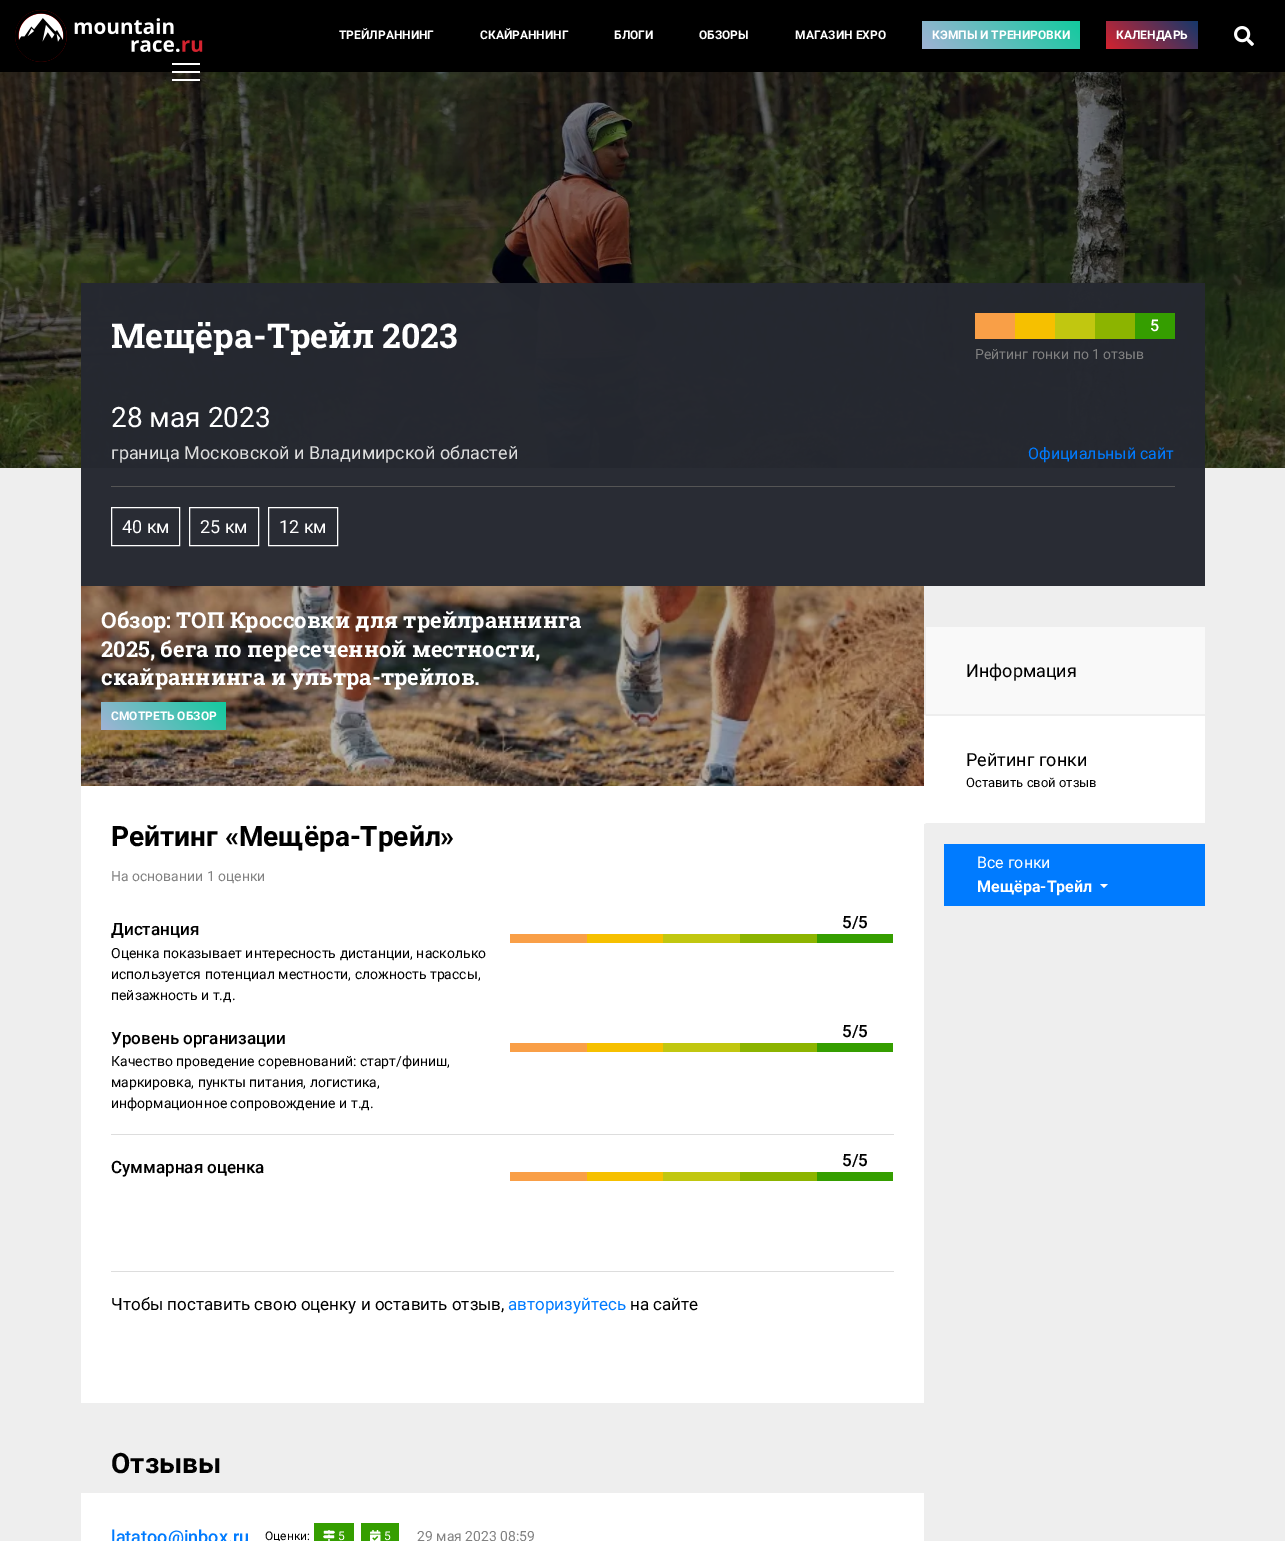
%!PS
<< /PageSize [1285 1541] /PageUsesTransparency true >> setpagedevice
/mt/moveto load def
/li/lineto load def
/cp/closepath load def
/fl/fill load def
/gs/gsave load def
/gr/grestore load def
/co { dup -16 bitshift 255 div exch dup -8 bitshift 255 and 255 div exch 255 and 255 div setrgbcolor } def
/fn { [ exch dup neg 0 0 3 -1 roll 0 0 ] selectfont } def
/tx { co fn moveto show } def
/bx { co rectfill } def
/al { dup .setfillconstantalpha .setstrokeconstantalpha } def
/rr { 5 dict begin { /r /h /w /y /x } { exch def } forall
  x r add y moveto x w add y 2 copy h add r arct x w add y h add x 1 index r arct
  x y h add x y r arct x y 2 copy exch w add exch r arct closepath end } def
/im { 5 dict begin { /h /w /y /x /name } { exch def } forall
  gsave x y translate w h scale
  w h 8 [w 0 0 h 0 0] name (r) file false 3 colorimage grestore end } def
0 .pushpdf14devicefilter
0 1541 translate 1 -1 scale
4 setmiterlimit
0 0 1285 1541 16#EEEEEE bx
0 0 1285 72 16#000000 bx
(media/1.raw) 15 10 188 52 im
gs 922 21 158 28 3 rr clip newpath
<< /ShadingType 2 /ColorSpace /DeviceRGB /Coords [955 82 1048 -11] /Extend [true true] /Function << /FunctionType 2 /Domain [0 1] /C0 [.631 .702 .835] /C1 [.071 .792 .62] /N 1 >> >> shfill gr
gs 1106 21 92 28 3 rr clip newpath
<< /ShadingType 2 /ColorSpace /DeviceRGB /Coords [1122 65 1182 5] /Extend [true true] /Function << /FunctionType 2 /Domain [0 1] /C0 [.831 .137 .184] /C1 [.078 .22 .42] /N 1 >> >> shfill gr
(media/2.raw) 1234 26 20 20 im
(media/3.raw) 0 72 1285 396 im
172 71 28 2 16#FFFFFF bx
172 63 28 2 16#FFFFFF bx
172 79 28 2 16#FFFFFF bx
0.98 al
81 283 1124 303 16#252830 bx
1 al
975 313 40 26 16#F99F47 bx
1015 313 40 26 16#F6C000 bx
1055 313 40 26 16#C1C710 bx
1095 313 40 26 16#8CB400 bx
1135 313 40 26 16#359E00 bx
111 486 1064 1 16#555555 bx
16#FFFFFF co
111.5 507.5 68 38 rectstroke
189.5 507.5 69 38 rectstroke
268.5 507.5 69 38 rectstroke
(media/4.raw) 81 586 843 200 im
gs 101 702 125 28 3 rr clip newpath
<< /ShadingType 2 /ColorSpace /DeviceRGB /Coords [125 754 202 678] /Extend [true true] /Function << /FunctionType 2 /Domain [0 1] /C0 [.631 .702 .835] /C1 [.071 .792 .62] /N 1 >> >> shfill gr
81 786 843 617 16#FFFFFF bx
817 934 76 9 16#359E00 bx
510 934 77 9 16#F99F47 bx
587 934 76 9 16#F6C000 bx
663 934 77 9 16#C1C710 bx
740 934 77 9 16#8CB400 bx
817 1043 76 9 16#359E00 bx
510 1043 77 9 16#F99F47 bx
587 1043 76 9 16#F6C000 bx
663 1043 77 9 16#C1C710 bx
740 1043 77 9 16#8CB400 bx
111 1134 783 1 16#DDDDDD bx
817 1172 76 9 16#359E00 bx
510 1172 77 9 16#F99F47 bx
587 1172 76 9 16#F6C000 bx
663 1172 77 9 16#C1C710 bx
740 1172 77 9 16#8CB400 bx
111 1271 783 1 16#DDDDDD bx
81 1493 843 48 16#FFFFFF bx
314 1523 40 18 16#359E00 bx
(media/5.raw) 323 1530 12 11 im
361 1523 38 18 16#359E00 bx
(media/6.raw) 370 1530 11 11 im
926 627 279 87 16#F9F9F9 bx
924 715 281 109 16#FFFFFF bx
16#EEEEEE co
924 715 mt 1205 715 li 1205 716 li 926 716 li cp fl
1205 824 mt 924 824 li 926 823 li 1205 823 li cp fl
16#FFFFFF co
924 824 mt 924 715 li 926 716 li 926 823 li cp fl
944 844 261 62 16#007BFF bx
16#FFFFFF co
1100 884 mt 1108 884 li 1104 888 li cp fl
(ТРЕЙЛРАННИНГ) 339 39 /Roboto-Bold 12 16#FFFFFF tx
(СКАЙРАННИНГ) 480 39 /Roboto-Bold 12 16#FFFFFF tx
(БЛОГИ) 614 39 /Roboto-Bold 12 16#FFFFFF tx
(ОБЗОРЫ) 699 39 /Roboto-Bold 12 16#FFFFFF tx
(МАГАЗИН EXPO) 795 39 /Roboto-Bold 12 16#FFFFFF tx
(КЭМПЫ И ТРЕНИРОВКИ) 932 39 /Roboto-Bold 12 16#FFFFFF tx
(КАЛЕНДАРЬ) 1116 39 /Roboto-Bold 12 16#FFFFFF tx
(Мещёра-Трейл 2023) 111 348 /RobotoSlab-Bold 34 16#FFFFFF tx
(5) 1150 331 /Roboto-Medium 16 16#FFFFFF tx
(Рейтинг гонки по 1 отзыв) 975 359 /Roboto-Regular 14 16#818181 tx
(28 мая 2023) 111 427 /Roboto-Regular 28 16#FFFFFF tx
(граница Московской и Владимирской областей) 111 459 /Roboto-Regular 18 16#DDDDDD tx
(Официальный сайт) 1028 459 /Roboto-Regular 16 16#007BFF tx
(40 км) 122 533 /Roboto-Regular 18 16#FFFFFF tx
(25 км) 200 533 /Roboto-Regular 18 16#FFFFFF tx
(12 км) 279 533 /Roboto-Regular 18 16#FFFFFF tx
(Обзор: ТОП Кроссовки для трейлраннинга) 101 628 /RobotoSlab-Bold 22 16#FFFFFF tx
(2025, бега по пересеченной местности,) 101 657 /RobotoSlab-Bold 22 16#FFFFFF tx
(скайраннинга и ультра-трейлов.) 101 685 /RobotoSlab-Bold 22 16#FFFFFF tx
(СМОТРЕТЬ ОБЗОР) 111 720 /Roboto-Bold 12 16#FFFFFF tx
(Рейтинг «Мещёра-Трейл») 111 846 /Roboto-Bold 28 16#000000 tx
(На основании 1 оценки) 111 881 /Roboto-Regular 14 16#818181 tx
(Дистанция) 111 935 /Roboto-Medium 17 16#000000 tx
(Оценка показывает интересность дистанции, насколько) 111 958 /Roboto-Regular 14 16#000000 tx
(используется потенциал местности, сложность трассы,) 111 979 /Roboto-Regular 14 16#000000 tx
(пейзажность и т.д.) 111 1000 /Roboto-Regular 14 16#000000 tx
(5/5) 842 928 /Roboto-Medium 17 16#000000 tx
(Уровень организации) 111 1044 /Roboto-Medium 17 16#000000 tx
(Качество проведение соревнований: старт/финиш,) 111 1066 /Roboto-Regular 14 16#000000 tx
(маркировка, пункты питания, логистика,) 111 1087 /Roboto-Regular 14 16#000000 tx
(информационное сопровождение и т.д.) 111 1108 /Roboto-Regular 14 16#000000 tx
(5/5) 842 1037 /Roboto-Medium 17 16#000000 tx
(Суммарная оценка) 111 1173 /Roboto-Medium 17 16#000000 tx
(5/5) 842 1166 /Roboto-Medium 17 16#000000 tx
(Чтобы поставить свою оценку и оставить отзыв,) 111 1310 /Roboto-Regular 17 16#000000 tx
(авторизуйтесь) 508 1310 /Roboto-Regular 17 16#007BFF tx
(на сайте) 630 1310 /Roboto-Regular 17 16#000000 tx
(Отзывы) 111 1473 /Roboto-Bold 28 16#000000 tx
(latatoo@inbox.ru) 111 1543 /Roboto-Medium 18 16#007BFF tx
(Оценки:) 265 1540 /Roboto-Regular 12 16#000000 tx
(5) 338 1540 /Roboto-Regular 12 16#FFFFFF tx
(5) 384 1540 /Roboto-Regular 12 16#FFFFFF tx
(29 мая 2023 08:59) 417 1541 /Roboto-Regular 14 16#818181 tx
(Информация) 966 677 /Roboto-Regular 18 16#000000 tx
(Рейтинг гонки) 966 766 /Roboto-Regular 18 16#000000 tx
(Оставить свой отзыв) 966 787 /Roboto-Regular 13 16#000000 tx
(Все гонки) 977 868 /Roboto-Regular 16 16#FFFFFF tx
(Мещёра-Трейл) 977 892 /Roboto-Bold 16 16#FFFFFF tx
.poppdf14devicefilter showpage
